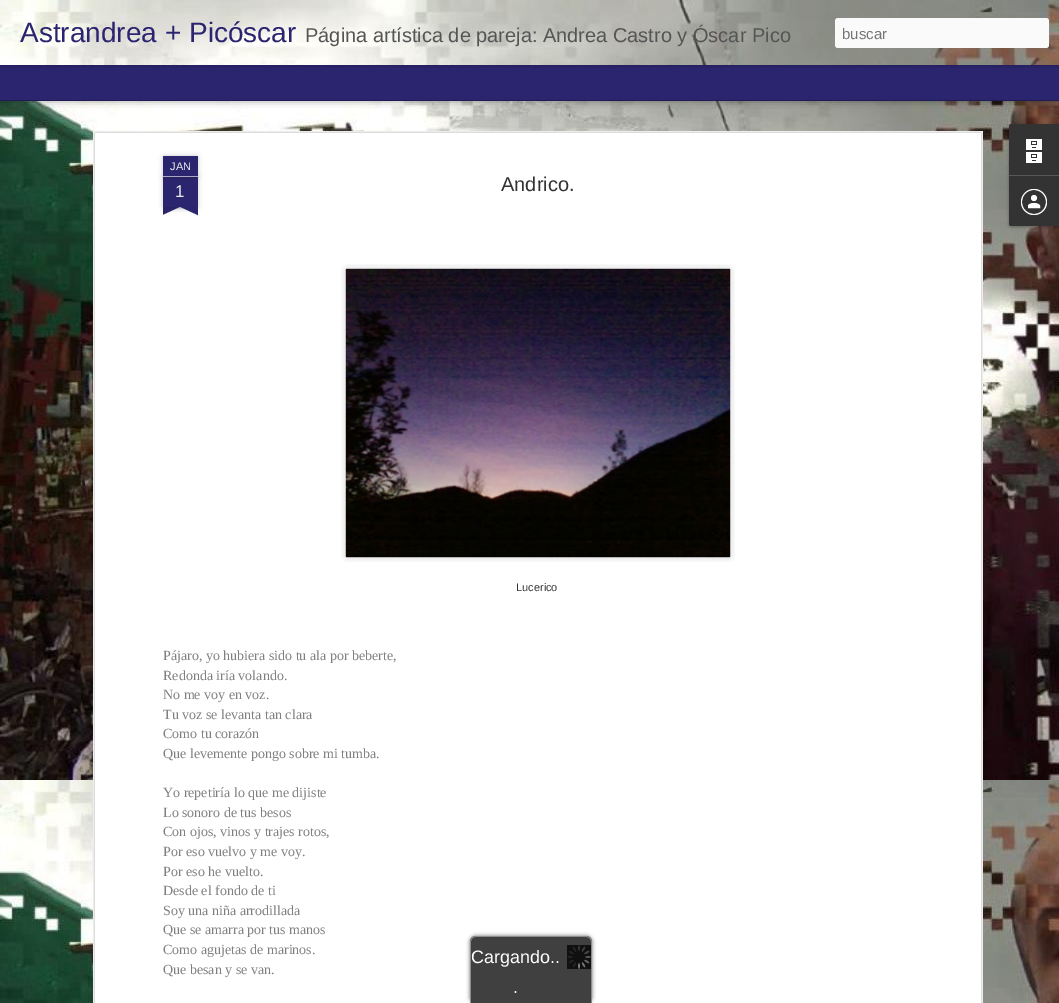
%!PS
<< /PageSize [1059 1003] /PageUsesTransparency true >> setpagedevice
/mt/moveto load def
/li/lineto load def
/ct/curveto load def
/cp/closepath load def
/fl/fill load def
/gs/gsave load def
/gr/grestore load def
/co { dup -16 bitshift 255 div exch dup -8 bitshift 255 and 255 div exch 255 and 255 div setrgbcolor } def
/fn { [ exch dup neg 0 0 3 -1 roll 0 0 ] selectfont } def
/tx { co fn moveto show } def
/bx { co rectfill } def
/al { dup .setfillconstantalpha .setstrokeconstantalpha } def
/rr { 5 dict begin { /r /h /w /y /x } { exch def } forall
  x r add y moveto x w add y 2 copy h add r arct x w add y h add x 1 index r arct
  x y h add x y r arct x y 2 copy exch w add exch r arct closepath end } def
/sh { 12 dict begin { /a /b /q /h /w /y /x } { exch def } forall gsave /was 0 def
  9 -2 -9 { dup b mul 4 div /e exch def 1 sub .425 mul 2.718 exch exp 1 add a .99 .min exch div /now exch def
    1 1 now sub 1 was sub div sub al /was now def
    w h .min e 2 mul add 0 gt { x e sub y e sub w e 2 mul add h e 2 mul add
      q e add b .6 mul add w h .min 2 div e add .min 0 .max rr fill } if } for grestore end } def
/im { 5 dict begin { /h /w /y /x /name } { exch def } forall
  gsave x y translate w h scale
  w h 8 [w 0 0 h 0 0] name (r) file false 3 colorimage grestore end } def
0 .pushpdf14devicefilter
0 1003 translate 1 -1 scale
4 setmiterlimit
0 0 1059 1003 16#2B256F bx
(media/2.raw) 0 101 1059 902 im
16#000000 co
0 65 1059 35 0 4 .5 sh
0 65 1059 35 16#2B256F bx
16#000000 co
0 0 1059 65 0 2.5 .3 sh
(media/1.raw) 0 0 1059 65 im
16#FAFAFA co
835 18 214 30 3 rr fl
93 131 890 872 16#FFFFFF bx
(media/3.raw) 93 131 890 872 im
16#000000 co
163 177 35 30 0 2.5 .2 sh
163 177 35 30 16#2B256F bx
16#000000 co
163 156 35 21 1 2.5 .2 sh
16#2B256F co
164 156 mt 197 156 li 197.5 156 198 156.5 198 157 ct 198 177 li 163 177 li 163 157 li 163 156.5 163.5 156 164 156 ct cp fl
163 176 35 1 16#AAA8C5 bx
gs
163 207 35 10 rectclip
16#000000 co
154 197 50 10 0 2.5 .2 sh
gr
gs
163 207 35 10 rectclip
16#2B256F co
154 208 mt 199 187 li 203 196 li 158 217 li cp fl
gr
gs
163 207 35 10 rectclip
16#000000 co
157 197 50 10 0 2.5 .2 sh
gr
gs
163 207 35 10 rectclip
16#2B256F co
161 187 mt 206 208 li 202 217 li 157 196 li cp fl
gr
(media/4.raw) 341 264 394 298 im
(media/5.raw) 345 268 386 290 im
16#000000 co
1009 125 50 102 2 1.5 .3 sh
16#333333 co
1011 124 mt 1059 124 li 1059 175 li 1009 175 li 1009 126 li 1009 125 1010 124 1011 124 ct cp fl
(media/6.raw) 1026 139 16 24 im
1009 175 mt 1059 175 li 1059 226 li 1011 226 li 1010 226 1009 225 1009 224 ct cp fl
1009 175 50 1 16#585858 bx
(media/7.raw) 1021 189 26 26 im
16#666666 co
470 936 122 67 6 2 1 sh
16#404040 co
476 936 mt 586 936 li 589.5 936 592 938.5 592 942 ct 592 1003 li 470 1003 li 470 942 li 470 938.5 472.5 936 476 936 ct cp fl
16#8C8C8C co
476 936 mt 586 936 li 589 936 592 939 592 942 ct 592 1003 li 470 1003 li 470 942 li 470 939 473 936 476 936 ct cp 476 937 mt 586 937 li 589 937 591 939 591 942 ct 591 1003 li 471 1003 li 471 942 li 471 939 473 937 476 937 ct cp eofill
(media/8.raw) 567 945 24 24 im
(Astrandrea + Picóscar) 20 42 /LiberationSans-Regular 28 16#2B256F tx
(Página artística de pareja: Andrea Castro y Óscar Pico) 305 42 /LiberationSans-Regular 20 16#555555 tx
(buscar) 842 39 /LiberationSans-Regular 15 16#757575 tx
(JAN) 170 170 /LiberationSans-Regular 11 16#EEEEEE tx
(1) 175 197 /LiberationSans-Regular 17 16#EEEEEE tx
(Andrico.) 501 191 /LiberationSans-Regular 20 16#333333 tx
(Lucerico) 516 591 /LiberationSans-Regular 11 16#333333 tx
(Pájaro, yo hubiera sido tu ala por beberte,) 163 660 /LiberationSerif-Regular 14 16#7F7F7F tx
(Redonda iría volando.) 163 680 /LiberationSerif-Regular 14 16#7F7F7F tx
(No me voy en voz.) 163 699 /LiberationSerif-Regular 14 16#7F7F7F tx
(Tu voz se levanta tan clara) 163 719 /LiberationSerif-Regular 14 16#7F7F7F tx
(Como tu corazón) 163 738 /LiberationSerif-Regular 14 16#7F7F7F tx
(Que levemente pongo sobre mi tumba.) 163 758 /LiberationSerif-Regular 14 16#7F7F7F tx
(Yo repetiría lo que me dijiste) 163 797 /LiberationSerif-Regular 14 16#7F7F7F tx
(Lo sonoro de tus besos) 163 817 /LiberationSerif-Regular 14 16#7F7F7F tx
(Con ojos, vinos y trajes rotos,) 163 836 /LiberationSerif-Regular 14 16#7F7F7F tx
(Por eso vuelvo y me voy.) 163 856 /LiberationSerif-Regular 14 16#7F7F7F tx
(Por eso he vuelto.) 163 876 /LiberationSerif-Regular 14 16#7F7F7F tx
(Desde el fondo de ti) 163 895 /LiberationSerif-Regular 14 16#7F7F7F tx
(Soy una niña arrodillada) 163 915 /LiberationSerif-Regular 14 16#7F7F7F tx
(Que se amarra por tus manos) 163 934 /LiberationSerif-Regular 14 16#7F7F7F tx
(Como agujetas de marinos.) 163 954 /LiberationSerif-Regular 14 16#7F7F7F tx
(Que besan y se van.) 163 974 /LiberationSerif-Regular 14 16#7F7F7F tx
(Cargando..) 471 963 /LiberationSans-Regular 18 16#FFFFFF tx
(.) 513 993 /LiberationSans-Regular 18 16#FFFFFF tx
.poppdf14devicefilter showpage
